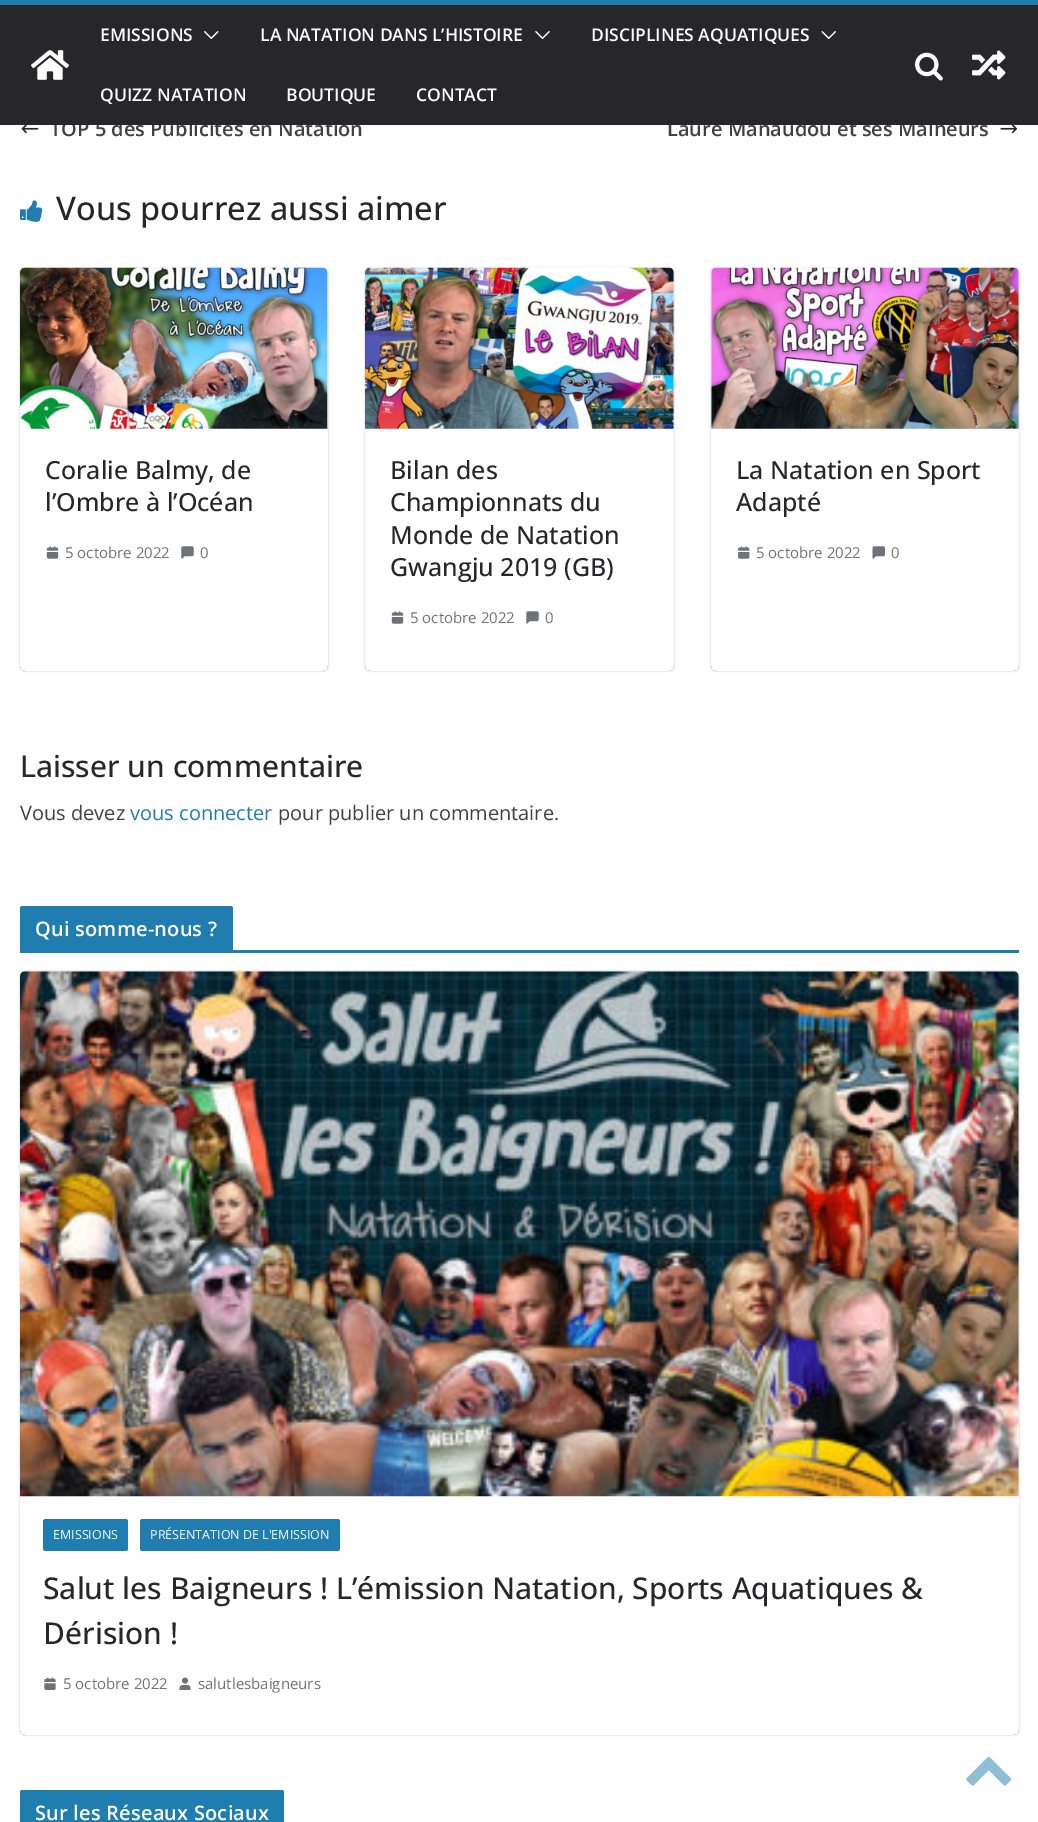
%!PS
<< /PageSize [1038 1822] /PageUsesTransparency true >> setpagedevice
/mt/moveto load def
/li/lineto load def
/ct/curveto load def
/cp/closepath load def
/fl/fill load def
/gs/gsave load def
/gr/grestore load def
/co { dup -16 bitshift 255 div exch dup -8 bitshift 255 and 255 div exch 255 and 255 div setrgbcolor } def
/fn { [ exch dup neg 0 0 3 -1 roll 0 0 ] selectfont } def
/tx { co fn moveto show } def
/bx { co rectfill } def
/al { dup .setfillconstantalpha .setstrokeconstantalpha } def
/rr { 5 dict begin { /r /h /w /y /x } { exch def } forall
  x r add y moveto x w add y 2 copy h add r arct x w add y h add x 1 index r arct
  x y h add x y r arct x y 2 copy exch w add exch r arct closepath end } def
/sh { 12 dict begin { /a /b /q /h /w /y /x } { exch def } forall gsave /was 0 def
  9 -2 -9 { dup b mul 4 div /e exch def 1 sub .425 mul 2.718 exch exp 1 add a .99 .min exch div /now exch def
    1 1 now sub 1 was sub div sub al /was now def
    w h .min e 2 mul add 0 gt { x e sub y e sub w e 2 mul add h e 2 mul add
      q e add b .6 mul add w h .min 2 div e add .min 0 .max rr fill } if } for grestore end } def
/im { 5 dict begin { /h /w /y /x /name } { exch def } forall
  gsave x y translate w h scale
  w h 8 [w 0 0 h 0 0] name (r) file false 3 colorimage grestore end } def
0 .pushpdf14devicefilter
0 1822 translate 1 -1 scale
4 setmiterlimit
0 0 1038 1822 16#FFFFFF bx
0 0 1038 5 16#207DAF bx
(media/7.raw) 21 125 18 9 im
(media/8.raw) 1000 125 17 9 im
(media/9.raw) 20 200 23 22 im
gs
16 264 mt 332 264 li 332 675 li 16 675 li cp 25 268 mt 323 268 li 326 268 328 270 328 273 ct 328 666 li 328 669 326 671 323 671 ct 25 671 li 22 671 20 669 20 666 ct 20 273 li 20 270 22 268 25 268 ct cp eoclip newpath
16#000000 co
20 268 308 403 5 1 .24 sh
gr
(media/10.raw) 20 267 308 162 im
(media/11.raw) 46 546 13 13 im
(media/12.raw) 181 546 13 13 im
gs
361 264 mt 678 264 li 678 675 li 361 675 li cp 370 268 mt 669 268 li 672 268 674 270 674 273 ct 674 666 li 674 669 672 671 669 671 ct 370 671 li 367 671 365 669 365 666 ct 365 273 li 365 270 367 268 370 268 ct cp eoclip newpath
16#000000 co
365 268 309 403 5 1 .24 sh
gr
(media/13.raw) 365 267 309 162 im
(media/11.raw) 391 611 13 13 im
(media/12.raw) 526 611 13 13 im
gs
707 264 mt 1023 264 li 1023 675 li 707 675 li cp 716 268 mt 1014 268 li 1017 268 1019 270 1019 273 ct 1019 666 li 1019 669 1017 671 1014 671 ct 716 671 li 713 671 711 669 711 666 ct 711 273 li 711 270 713 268 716 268 ct cp eoclip newpath
16#000000 co
711 268 308 403 5 1 .24 sh
gr
(media/14.raw) 711 267 308 162 im
(media/15.raw) 738 546 12 13 im
(media/16.raw) 872 546 13 13 im
20 950 999 3 16#207DAF bx
22.5 906 mt 230.5 906 li 232 906 233 907 233 908.5 ct 233 950 li 20 950 li 20 908.5 li 20 907 21 906 22.5 906 ct cp fl
gs
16 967 mt 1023 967 li 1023 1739 li 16 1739 li cp 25 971 mt 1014 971 li 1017 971 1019 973 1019 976 ct 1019 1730 li 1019 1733 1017 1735 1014 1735 ct 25 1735 li 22 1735 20 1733 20 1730 ct 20 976 li 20 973 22 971 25 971 ct cp eoclip newpath
16#000000 co
20 971 999 764 5 1 .24 sh
gr
(media/17.raw) 20 971 999 526 im
43 1519 85 32 2.5 rr fl
140 1519 200 32 2.5 rr fl
(media/18.raw) 44 1677 12 13 im
(media/19.raw) 179 1677 12 13 im
22.5 1790 mt 281.5 1790 li 283 1790 284 1791 284 1792.5 ct 284 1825 li 20 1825 li 20 1792.5 li 20 1791 21 1790 22.5 1790 ct cp fl
(media/20.raw) 966 1756 46 30 im
(TOP 5 des Publicités en Natation) 50 136 /OpenSans-SemiBold 20 16#3F3F46 tx
(Laure Manaudou et ses Malheurs) 667 136 /OpenSans-SemiBold 20 16#3F3F46 tx
0 5 1038 120 16#27272A bx
(CONTACT) 416 101 /OpenSans-SemiBold 17.5 16#FFFFFF tx
(BOUTIQUE) 286 101 /OpenSans-SemiBold 17.5 16#FFFFFF tx
(QUIZZ NATATION) 100 101 /OpenSans-SemiBold 17.5 16#FFFFFF tx
(media/4.raw) 821 31 15 8 im
(DISCIPLINES AQUATIQUES) 591 41 /OpenSans-SemiBold 17.5 16#FFFFFF tx
(media/3.raw) 535 31 15 8 im
(LA NATATION DANS L’HISTOIRE) 260 41 /OpenSans-SemiBold 17.5 16#FFFFFF tx
(media/2.raw) 204 31 15 8 im
(EMISSIONS) 100 41 /OpenSans-SemiBold 17.5 16#FFFFFF tx
(media/5.raw) 915 52 28 29 im
(media/6.raw) 972 50 34 30 im
(media/1.raw) 31 50 38 30 im
(Vous pourrez aussi aimer) 56 220 /OpenSans-Medium 32.5 16#27272A tx
(Coralie Balmy, de) 45 479 /OpenSans-Medium 25 16#27272A tx
(l’Ombre à l’Océan) 45 511 /OpenSans-Medium 25 16#27272A tx
(5 octobre 2022) 65 558 /OpenSans-Regular 15 16#71717A tx
(0) 200 558 /OpenSans-Regular 15 16#71717A tx
(Bilan des) 390 479 /OpenSans-Medium 25 16#27272A tx
(Championnats du) 390 511 /OpenSans-Medium 25 16#27272A tx
(Monde de Natation) 390 544 /OpenSans-Medium 25 16#27272A tx
(Gwangju 2019 \(GB\)) 390 576 /OpenSans-Medium 25 16#27272A tx
(5 octobre 2022) 410 623 /OpenSans-Regular 15 16#71717A tx
(0) 545 623 /OpenSans-Regular 15 16#71717A tx
(La Natation en Sport) 736 479 /OpenSans-Medium 25 16#27272A tx
(Adapté) 736 511 /OpenSans-Medium 25 16#27272A tx
(5 octobre 2022) 756 558 /OpenSans-Regular 15 16#71717A tx
(0) 891 558 /OpenSans-Regular 15 16#71717A tx
(Laisser un commentaire) 20 777 /OpenSans-Medium 30 16#27272A tx
(Vous devez) 20 820 /OpenSans-Regular 20 16#3F3F46 tx
(vous connecter) 130 820 /OpenSans-Regular 20 16#207DAF tx
(pour publier un commentaire.) 278 820 /OpenSans-Regular 20 16#3F3F46 tx
/OpenSans-SemiBold 20 fn
16#FFFFFF co
35 936 mt .2 0 (Qui somme-nous ?) ashow
(EMISSIONS) 53 1539 /OpenSans-Regular 12.5 16#FFFFFF tx
(PRÉSENTATION DE L'EMISSION) 150 1539 /OpenSans-Regular 12.5 16#FFFFFF tx
(Salut les Baigneurs ! L’émission Natation, Sports Aquatiques &) 43 1599 /OpenSans-Medium 30 16#27272A tx
(Dérision !) 43 1644 /OpenSans-Medium 30 16#27272A tx
(5 octobre 2022) 63 1689 /OpenSans-Regular 15 16#71717A tx
(salutlesbaigneurs) 198 1689 /OpenSans-Regular 15 16#71717A tx
/OpenSans-SemiBold 20 fn
16#FFFFFF co
35 1820 mt .2 0 (Sur les Réseaux Sociaux) ashow
.poppdf14devicefilter showpage
